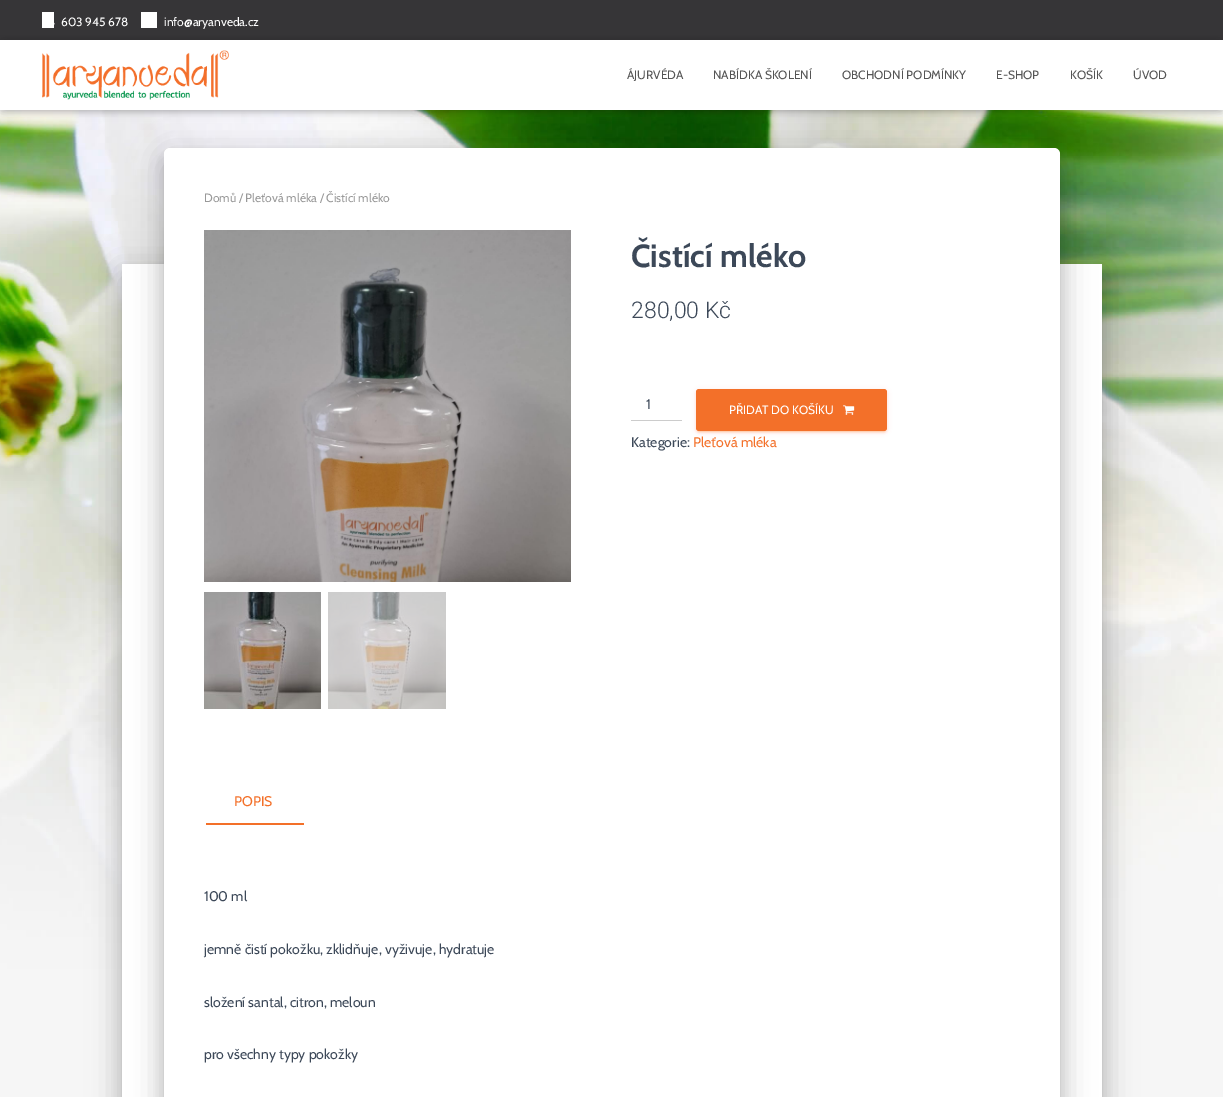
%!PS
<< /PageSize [1223 1097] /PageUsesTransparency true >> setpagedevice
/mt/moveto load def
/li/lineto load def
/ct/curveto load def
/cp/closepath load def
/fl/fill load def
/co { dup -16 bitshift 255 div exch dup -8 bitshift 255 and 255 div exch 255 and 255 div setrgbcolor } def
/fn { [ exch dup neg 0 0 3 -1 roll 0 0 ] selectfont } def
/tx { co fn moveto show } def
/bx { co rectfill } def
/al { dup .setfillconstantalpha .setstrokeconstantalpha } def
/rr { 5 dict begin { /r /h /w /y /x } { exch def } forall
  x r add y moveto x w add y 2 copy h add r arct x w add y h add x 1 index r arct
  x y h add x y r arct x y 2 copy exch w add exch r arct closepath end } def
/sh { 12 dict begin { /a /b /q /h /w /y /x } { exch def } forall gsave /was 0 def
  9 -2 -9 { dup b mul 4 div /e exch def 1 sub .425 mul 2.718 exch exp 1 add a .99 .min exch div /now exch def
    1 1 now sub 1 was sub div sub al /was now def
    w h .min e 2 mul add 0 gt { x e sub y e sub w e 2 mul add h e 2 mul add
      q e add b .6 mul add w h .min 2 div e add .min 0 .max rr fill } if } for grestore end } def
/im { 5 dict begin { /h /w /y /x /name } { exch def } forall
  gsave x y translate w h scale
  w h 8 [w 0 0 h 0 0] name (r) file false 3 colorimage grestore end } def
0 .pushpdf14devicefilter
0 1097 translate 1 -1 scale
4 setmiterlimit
0 0 1223 1097 16#FFFFFF bx
(media/1.raw) 0 110 1223 987 im
0 0 1223 40 16#363537 bx
42 12 12 16 16#FFFFFF bx
(media/2.raw) 54 22 1 3 im
141 12 16 16 16#FFFFFF bx
16#000000 co
2 46 1219 66 0 2.5 .1 sh
0 41 1223 70 0 5 .12 sh
6 47 1211 58 0 5 .42 sh
127 277 970 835 0 5 .2 sh
117 265 990 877 0 15 .12 sh
120 278 984 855 0 12 .14 sh
122 264 980 833 16#FFFFFF bx
16#000000 co
159 149 906 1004 11 15 .12 sh
0 40 1223 70 16#FFFFFF bx
(media/3.raw) 42 50 187 50 im
16#000000 co
169 161 886 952 1 5 .2 sh
162 162 900 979 8 12 .14 sh
16#FFFFFF co
164 148 896 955 6 rr fl
(media/4.raw) 204 230 367 352 im
(media/5.raw) 204 592 117 117 im
(media/6.raw) 328 592 118 117 im
631 420 51 1 16#CCCCCC bx
16#F37029 co
696 390 191 42 3 2.5 .12 sh
698 394 187 38 1 .5 .2 sh
696 391 191 42 3 1 .14 sh
696 389 191 42 3 rr fl
(media/7.raw) 843 405 12 10 im
204 823 100 2 16#F37029 bx
16#FFFFFF co
201 826 mt 201 828 li 204.5 828 206 826.5 206 823 ct 204 823 li 203.5 824.5 202.5 825.5 201 826 ct cp fl
(603 945 678) 61 26 /Cabin-Regular 12 16#FFFFFF tx
(info@aryanveda.cz) 164 26 /Cabin-Regular 12 16#FFFFFF tx
(ÁJURVÉDA) 627 79 /Cabin-Regular 12 16#555555 tx
(NABÍDKA ŠKOLENÍ) 713 79 /Cabin-Regular 12 16#555555 tx
(OBCHODNÍ PODMÍNKY) 842 79 /Cabin-Regular 12 16#555555 tx
(E-SHOP) 996 79 /Cabin-Regular 12 16#555555 tx
(KOŠÍK) 1070 79 /Cabin-Regular 12 16#555555 tx
(ÚVOD) 1133 79 /Cabin-Regular 12 16#555555 tx
(Domů / Pleťová mléka / Čistící mléko) 204 202 /Cabin-Regular 12 16#999999 tx
(Čistící mléko) 631 267 /Cabin-Bold 32 16#3C4858 tx
(280,00 Kč) 631 318 /Roboto-Light 23 16#3C4858 tx
(1) 646 409 /Cabin-Regular 14 16#3C4858 tx
(PŘIDAT DO KOŠÍKU) 729 414 /Cabin-Regular 12 16#FFFFFF tx
(Kategorie:) 631 447 /Cabin-Regular 14 16#3C4858 tx
(Pleťová mléka) 693 447 /Cabin-Regular 14 16#F37029 tx
(POPIS) 234 806 /Cabin-Regular 14 16#F37029 tx
(100 ml) 204 901 /Cabin-Regular 14 16#3C4858 tx
(jemně čistí pokožku, zklidňuje, vyživuje, hydratuje) 204 954 /Cabin-Regular 14 16#3C4858 tx
(složení santal, citron, meloun) 204 1007 /Cabin-Regular 14 16#3C4858 tx
(pro všechny typy pokožky) 204 1059 /Cabin-Regular 14 16#3C4858 tx
.poppdf14devicefilter showpage
